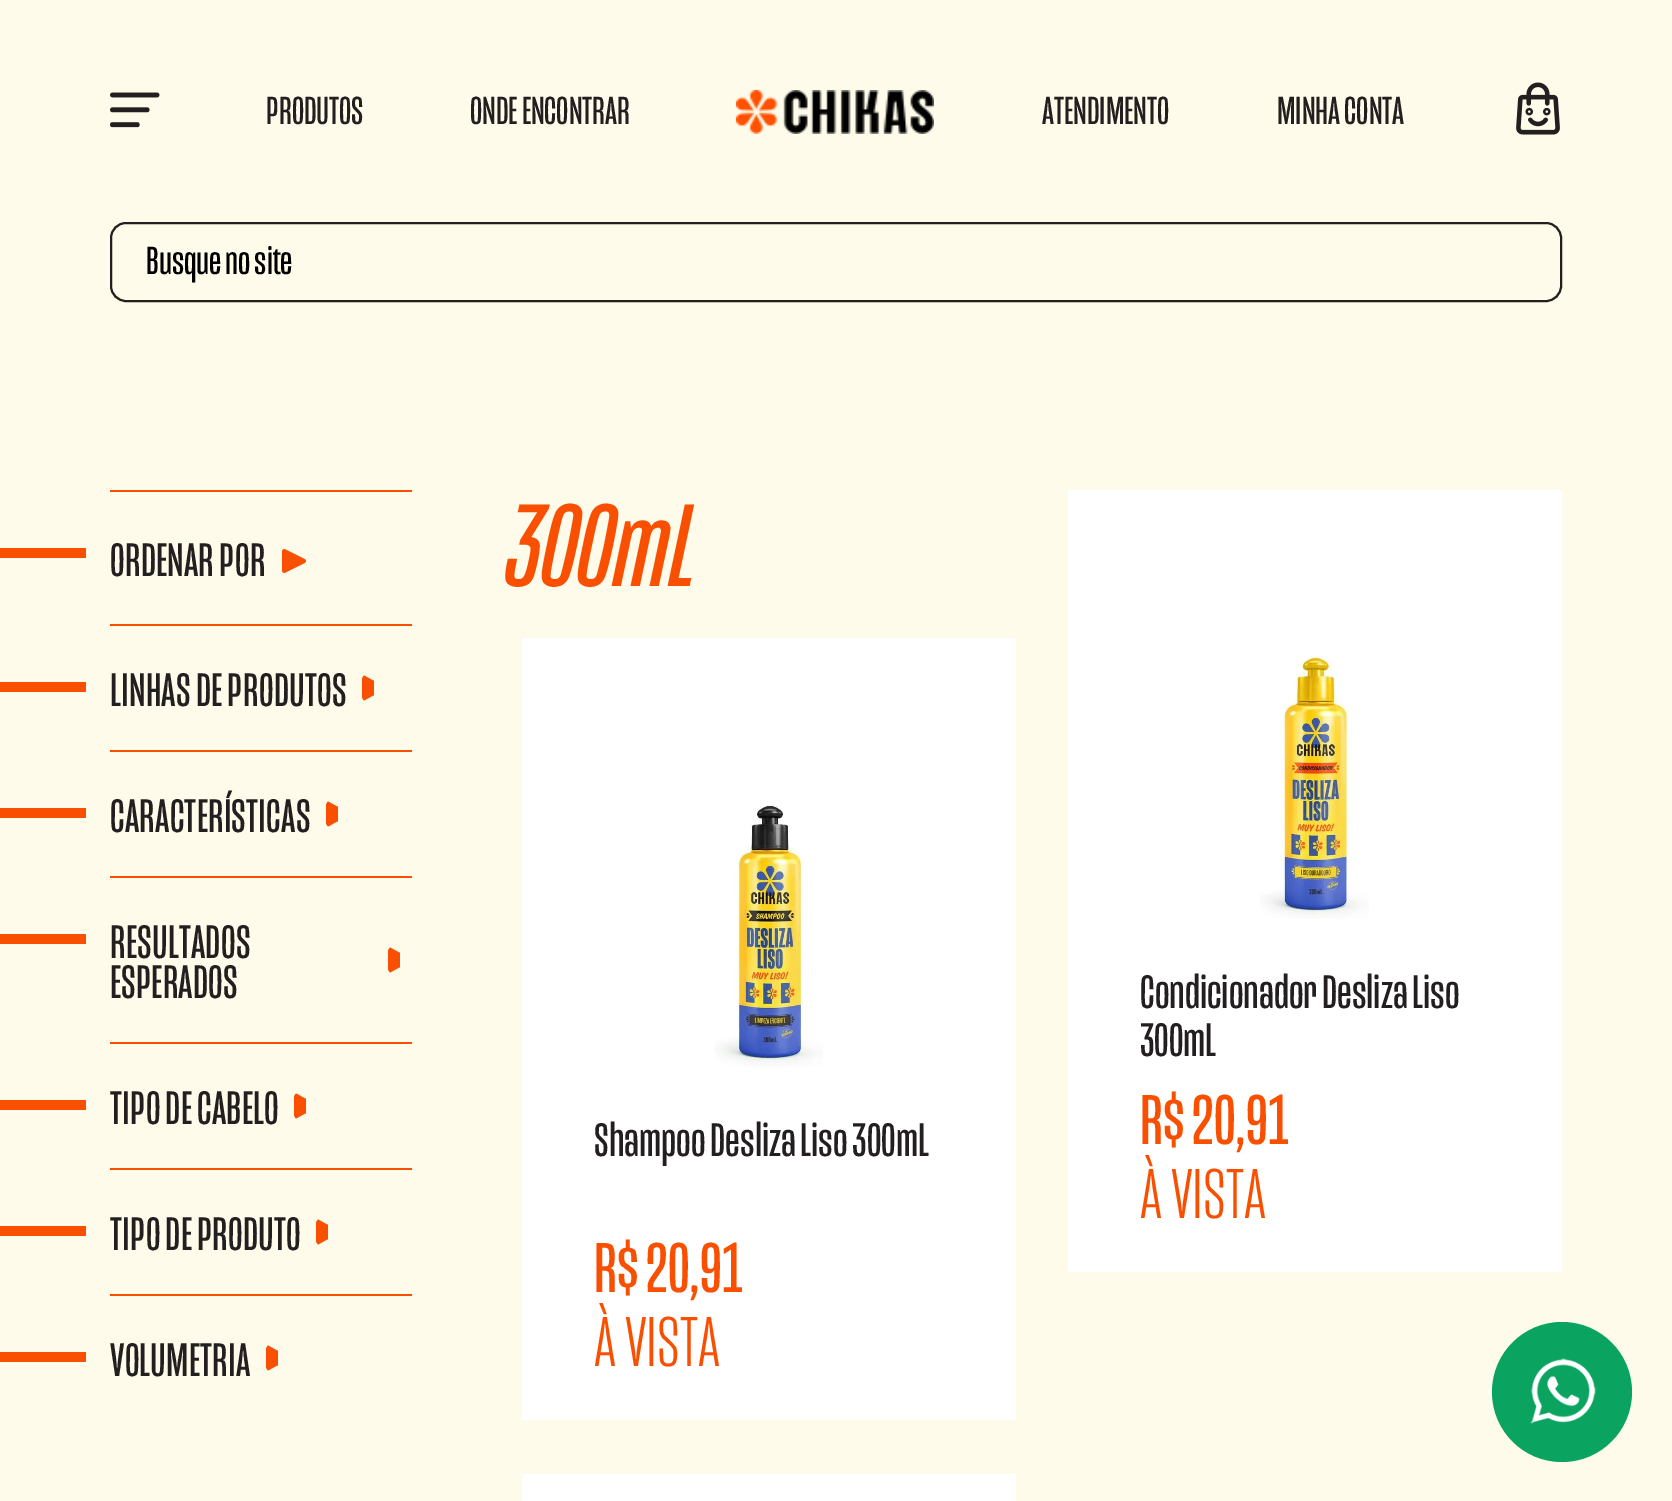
%!PS
<< /PageSize [1672 1501] >> setpagedevice
/mt/moveto load def
/li/lineto load def
/ct/curveto load def
/cp/closepath load def
/fl/fill load def
/st/stroke load def
/lw/setlinewidth load def
/co { dup -16 bitshift 255 div exch dup -8 bitshift 255 and 255 div exch 255 and 255 div setrgbcolor } def
/fn { [ exch dup neg 0 0 3 -1 roll 0 0 ] selectfont } def
/tx { co fn moveto show } def
/bx { co rectfill } def
/ci { newpath 0 360 arc closepath } def
/rr { 5 dict begin { /r /h /w /y /x } { exch def } forall
  x r add y moveto x w add y 2 copy h add r arct x w add y h add x 1 index r arct
  x y h add x y r arct x y 2 copy exch w add exch r arct closepath end } def
/im { 5 dict begin { /h /w /y /x /name } { exch def } forall
  gsave x y translate w h scale
  w h 8 [w 0 0 h 0 0] name (r) file false 3 colorimage grestore end } def
0 1501 translate 1 -1 scale
4 setmiterlimit
0 0 1672 1501 16#FFFBEA bx
(media/1.raw) 110 92 50 36 im
(media/2.raw) 736 90 198 44 im
(media/3.raw) 1516 82 44 53 im
16#231F20 co
2 lw
111 223 1450 78 15 rr st
110 490 302 2 16#F94F00 bx
0 548 86 10 16#F94F00 bx
(media/4.raw) 282 549 24 24 im
110 624 302 2 16#F94F00 bx
0 682 86 10 16#F94F00 bx
362 680 mt 362 696 li 362 698 363 699.5 364 700.5 ct 374 695 li 374 681 li 364 675.5 li 363 676.5 362 678 362 680 ct cp fl
110 750 302 2 16#F94F00 bx
0 808 86 10 16#F94F00 bx
326 806 mt 326 822 li 326 824 327 825.5 328 826.5 ct 338 821 li 338 807 li 328 801.5 li 327 802.5 326 804 326 806 ct cp fl
110 876 302 2 16#F94F00 bx
0 934 86 10 16#F94F00 bx
388 952 mt 388 968 li 388 970 389 971.5 390 972.5 ct 400 967 li 400 953 li 390 947.5 li 389 948.5 388 950 388 952 ct cp fl
110 1042 302 2 16#F94F00 bx
0 1100 86 10 16#F94F00 bx
294 1098 mt 294 1114 li 294 1116 295 1117.5 296 1118.5 ct 306 1113 li 306 1099 li 296 1093.5 li 295 1094.5 294 1096 294 1098 ct cp fl
110 1168 302 2 16#F94F00 bx
0 1226 86 10 16#F94F00 bx
316 1224 mt 316 1240 li 316 1242 317 1243.5 318 1244.5 ct 328 1239 li 328 1225 li 318 1219.5 li 317 1220.5 316 1222 316 1224 ct cp fl
110 1294 302 2 16#F94F00 bx
0 1352 86 10 16#F94F00 bx
266 1350 mt 266 1366 li 266 1368 267 1369.5 268 1370.5 ct 278 1365 li 278 1351 li 268 1345.5 li 267 1346.5 266 1348 266 1350 ct cp fl
1068 490 494 782 16#FFFFFF bx
(media/5.raw) 1260 654 109 265 im
522 638 494 782 16#FFFFFF bx
(media/6.raw) 714 804 109 263 im
522 1474 494 27 16#FFFFFF bx
16#0BA360 co
1562 1392 70 ci fl
(media/7.raw) 1530 1358 66 66 im
(PRODUTOS) 266 124 /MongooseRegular-Regular 40 16#231F20 tx
(ONDE ENCONTRAR) 470 124 /MongooseRegular-Regular 40 16#231F20 tx
(ATENDIMENTO) 1042 124 /MongooseRegular-Regular 40 16#231F20 tx
(MINHA CONTA) 1277 124 /MongooseRegular-Regular 40 16#231F20 tx
(Busque no site) 146 274 /MongooseRegular-Regular 40 16#000000 tx
/MongooseRegular-Regular 48 fn
16#231F20 co
110 576 mt .25 0 (ORDENAR POR) ashow
110 706 mt .25 0 (LINHAS DE PRODUTOS) ashow
110 832 mt .25 0 (CARACTERÍSTICAS) ashow
110 958 mt .25 0 (RESULTADOS) ashow
110 998 mt .25 0 (ESPERADOS) ashow
110 1124 mt .25 0 (TIPO DE CABELO) ashow
110 1250 mt .25 0 (TIPO DE PRODUTO) ashow
110 1376 mt .25 0 (VOLUMETRIA) ashow
(300mL) 508 586 /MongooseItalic-Italic 120 16#F94F00 tx
(Condicionador Desliza Liso) 1140 1008 /MongooseRegular-Regular 48 16#231F20 tx
(300mL) 1140 1056 /MongooseRegular-Regular 48 16#231F20 tx
(R$ 20,91) 1140 1144 /MongooseRegular-Regular 72 16#F94F00 tx
(À VISTA) 1140 1218 /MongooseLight-Light 72 16#F94F00 tx
(Shampoo Desliza Liso 300mL) 594 1156 /MongooseRegular-Regular 48 16#231F20 tx
(R$ 20,91) 594 1292 /MongooseRegular-Regular 72 16#F94F00 tx
(À VISTA) 594 1366 /MongooseLight-Light 72 16#F94F00 tx
showpage
